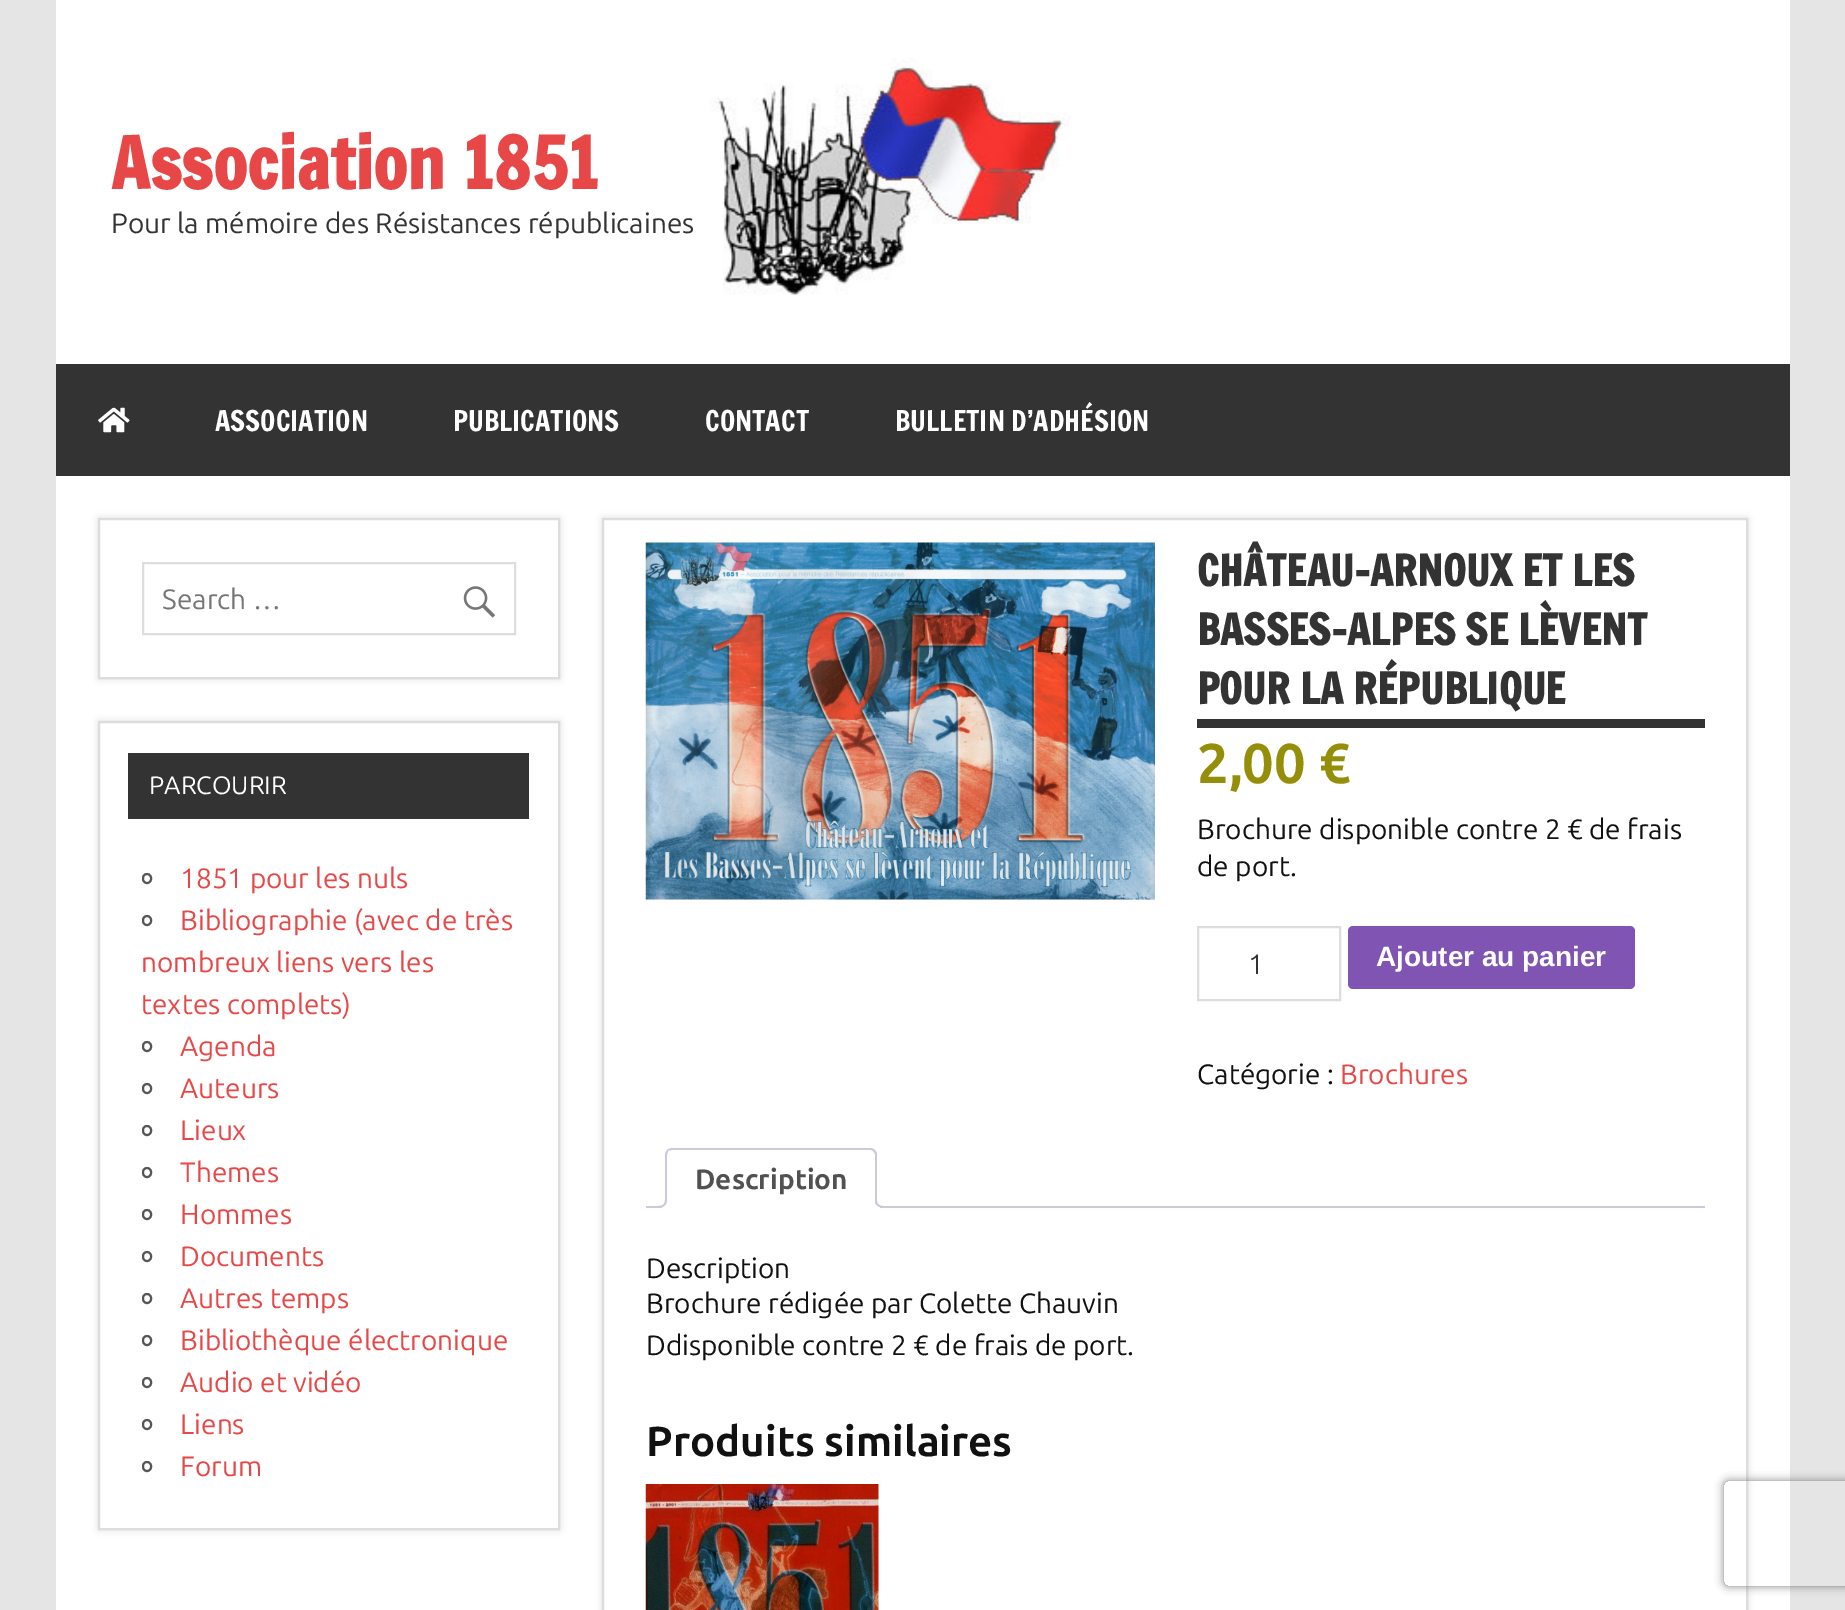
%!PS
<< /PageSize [1845 1610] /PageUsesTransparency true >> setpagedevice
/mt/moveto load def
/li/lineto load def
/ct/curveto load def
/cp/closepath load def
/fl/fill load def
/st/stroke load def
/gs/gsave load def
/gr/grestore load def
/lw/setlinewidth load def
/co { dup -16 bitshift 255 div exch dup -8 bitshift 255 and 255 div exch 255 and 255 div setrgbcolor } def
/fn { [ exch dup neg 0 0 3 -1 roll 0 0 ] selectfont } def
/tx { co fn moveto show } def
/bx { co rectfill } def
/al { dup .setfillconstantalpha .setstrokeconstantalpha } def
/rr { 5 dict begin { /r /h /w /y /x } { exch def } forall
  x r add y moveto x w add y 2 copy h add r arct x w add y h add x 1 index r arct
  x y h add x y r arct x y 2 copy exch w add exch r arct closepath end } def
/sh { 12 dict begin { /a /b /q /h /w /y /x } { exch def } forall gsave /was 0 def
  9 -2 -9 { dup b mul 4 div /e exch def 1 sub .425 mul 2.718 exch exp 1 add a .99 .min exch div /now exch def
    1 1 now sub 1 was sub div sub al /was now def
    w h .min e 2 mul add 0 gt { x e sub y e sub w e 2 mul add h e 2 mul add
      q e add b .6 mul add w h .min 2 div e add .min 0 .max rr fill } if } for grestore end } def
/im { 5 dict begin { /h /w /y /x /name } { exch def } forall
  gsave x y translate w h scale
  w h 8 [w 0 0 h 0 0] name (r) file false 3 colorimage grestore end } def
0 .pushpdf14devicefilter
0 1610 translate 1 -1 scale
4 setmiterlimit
0 0 1845 1610 16#E5E5E5 bx
56 0 1734 1610 16#FFFFFF bx
(media/1.raw) 709 58 361 238 im
56 364 1734 112 16#333333 bx
(media/2.raw) 98 407 32 26 im
gs
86 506 mt 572 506 li 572 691 li 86 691 li cp 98 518 mt 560 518 li 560 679 li 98 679 li cp eoclip newpath
16#DDDDDD co
98 518 462 161 0 3.5 1 sh
gr
16#DDDDDD co
2 lw
99 519 460 159 rectstroke
143 563 372 71 rectstroke
(media/3.raw) 463 586 33 32 im
98 721 462 809 0 3.5 1 sh
16#FFFFFF co
99 722 mt 559 722 li 559 1529 li 99 1529 li cp gs fl gr
16#DDDDDD co
st
128 753 401 66 16#333333 bx
16#555555 co
143 874 8 9 4 rr st
143 916 8 9 4 rr st
143 1042 8 9 4 rr st
143 1084 8 9 4 rr st
143 1126 8 9 4 rr st
143 1168 8 9 4 rr st
143 1210 8 9 4 rr st
143 1252 8 9 4 rr st
143 1294 8 9 4 rr st
143 1336 8 9 4 rr st
143 1378 8 9 4 rr st
143 1420 8 9 4 rr st
143 1462 8 9 4 rr st
gs
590 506 mt 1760 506 li 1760 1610 li 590 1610 li cp 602 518 mt 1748 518 li 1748 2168 li 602 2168 li cp eoclip newpath
16#DDDDDD co
602 518 1146 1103 0 3.5 1 sh
gr
16#DDDDDD co
603 519 1144 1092 rectstroke
(media/4.raw) 645 542 510 358 im
1197 719 508 9 16#333333 bx
16#DDDDDD co
1198 927 142 73 rectstroke
16#7F54B3 co
1348 926 287 63 5 rr fl
646 1206 1059 2 16#CFC8D8 bx
16#FFFFFF co
672 1148 mt 870 1148 li 874 1148 877 1151 877 1155 ct 877 1208 li 665 1208 li 665 1155 li 665 1151 668 1148 672 1148 ct cp fl
16#CFC8D8 co
672 1148 mt 670 1148 668 1149 667 1150 ct 668 1151 li 669 1150 671 1150 672 1150 ct 871 1150 li 873 1151 li 875 1150 li 874 1149 872 1148 870 1148 ct cp fl
875 1150 mt 877 1153 li 877 1208 li 875 1206 li 875 1155 li 875 1153 874 1152 873 1151 ct cp fl
16#FFFFFF co
877 1208 mt 875 1206 li 667 1206 li 665 1208 li cp fl
16#CFC8D8 co
665 1208 mt 667 1206 li 667 1155 li 667 1154 668 1152 668 1151 ct 667 1150 li 666 1151 665 1153 665 1155 ct cp fl
gs
646 1148 1059 60 rectclip
16#FFFFFF co
662 1207 mt 662 1211 li 668 1211 670 1207.5 670 1202 ct 666.5 1202 li 666 1204.5 664.5 1206.5 662 1207 ct cp fl
gr
658 1199 mt 667 1199 li 667 1205 664 1207.5 658 1207.5 ct cp 658 1199 mt 665 1199 li 665 1204 663 1206 658 1206 ct cp eofill
gs
646 1148 1059 60 rectclip
16#FFFFFF co
872 1202 mt 872 1207.5 874 1211 880 1211 ct 880 1207 li 877.5 1206.5 875.5 1204.5 875 1202 ct cp fl
gr
875 1199 mt 884 1199 li 884 1207.5 li 879.5 1207.5 875 1206 875 1200.5 ct cp 877 1199 mt 884 1199 li 884 1206 li 880.5 1206 877 1205 877 1200.5 ct cp eofill
(media/5.raw) 645 1484 234 126 im
gs
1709 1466 mt 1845 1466 li 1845 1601 li 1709 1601 li cp 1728 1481 mt 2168 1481 li 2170 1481 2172 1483 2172 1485 ct 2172 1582 li 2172 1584 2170 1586 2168 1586 ct 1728 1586 li 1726 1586 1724 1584 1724 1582 ct 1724 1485 li 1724 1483 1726 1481 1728 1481 ct cp eoclip newpath
16#808080 co
1724 1481 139 105 4 4.5 1 sh
gr
(Association 1851) 111 189 /FrancoisOne-Bold 70 16#E84747 tx
(Pour la mémoire des Résistances républicaines) 111 233 /Ubuntu-Regular 28 16#333333 tx
(ASSOCIATION) 215 431 /FrancoisOne-Regular 28 16#FFFFFF tx
(PUBLICATIONS) 453 431 /FrancoisOne-Regular 28 16#FFFFFF tx
(CONTACT) 705 431 /FrancoisOne-Regular 28 16#FFFFFF tx
(BULLETIN D’ADHÉSION) 895 431 /FrancoisOne-Regular 28 16#FFFFFF tx
(Search …) 162 609 /Ubuntu-Regular 28 16#757575 tx
(PARCOURIR) 149 794 /Ubuntu-Regular 25.25 16#FFFFFF tx
(1851 pour les nuls) 180 888 /Ubuntu-Regular 28 16#E84747 tx
(Bibliographie \(avec de très) 180 930 /Ubuntu-Regular 28 16#E84747 tx
(nombreux liens vers les) 141 972 /Ubuntu-Regular 28 16#E84747 tx
(textes complets\)) 141 1014 /Ubuntu-Regular 28 16#E84747 tx
(Agenda) 180 1056 /Ubuntu-Regular 28 16#E84747 tx
(Auteurs) 180 1098 /Ubuntu-Regular 28 16#E84747 tx
(Lieux) 180 1140 /Ubuntu-Regular 28 16#E84747 tx
(Themes) 180 1182 /Ubuntu-Regular 28 16#E84747 tx
(Hommes) 180 1224 /Ubuntu-Regular 28 16#E84747 tx
(Documents) 180 1266 /Ubuntu-Regular 28 16#E84747 tx
(Autres temps) 180 1308 /Ubuntu-Regular 28 16#E84747 tx
(Bibliothèque électronique) 180 1350 /Ubuntu-Regular 28 16#E84747 tx
(Audio et vidéo) 180 1392 /Ubuntu-Regular 28 16#E84747 tx
(Liens) 180 1434 /Ubuntu-Regular 28 16#E84747 tx
(Forum) 180 1476 /Ubuntu-Regular 28 16#E84747 tx
(CHÂTEAU-ARNOUX ET LES) 1197 586 /FrancoisOne-Bold 42 16#333333 tx
(BASSES-ALPES SE LÈVENT) 1197 645 /FrancoisOne-Bold 42 16#333333 tx
(POUR LA RÉPUBLIQUE) 1197 704 /FrancoisOne-Bold 42 16#333333 tx
(2,00 €) 1197 783 /Ubuntu-Bold 56 16#958E09 tx
(Brochure disponible contre 2 € de frais) 1197 839 /Ubuntu-Regular 28 16#111111 tx
(de port.) 1197 876 /Ubuntu-Regular 28 16#111111 tx
(1) 1248 974 /Ubuntu-Regular 28 16#333333 tx
(Ajouter au panier) 1376 966 /LiberationSans-Bold 28 16#FFFFFF tx
(Catégorie :) 1197 1084 /Ubuntu-Regular 28 16#111111 tx
(Brochures) 1340 1084 /Ubuntu-Regular 28 16#E84747 tx
(Description) 695 1189 /Ubuntu-Bold 28 16#515151 tx
(Description) 646 1278 /Ubuntu-Regular 28 16#111111 tx
(Brochure rédigée par Colette Chauvin) 646 1313 /Ubuntu-Regular 28 16#111111 tx
(Ddisponible contre 2 € de frais de port.) 646 1355 /Ubuntu-Regular 28 16#111111 tx
(Produits similaires) 646 1456 /Ubuntu-Bold 42 16#111111 tx
.poppdf14devicefilter showpage
